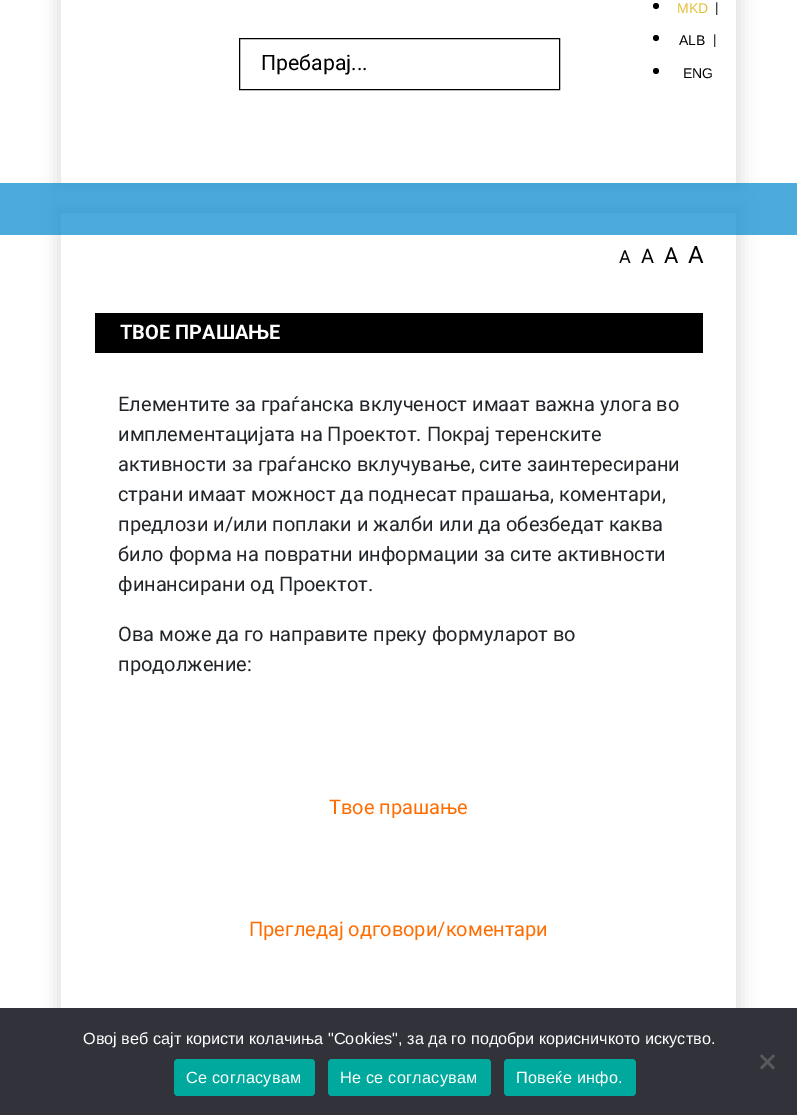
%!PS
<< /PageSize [797 1115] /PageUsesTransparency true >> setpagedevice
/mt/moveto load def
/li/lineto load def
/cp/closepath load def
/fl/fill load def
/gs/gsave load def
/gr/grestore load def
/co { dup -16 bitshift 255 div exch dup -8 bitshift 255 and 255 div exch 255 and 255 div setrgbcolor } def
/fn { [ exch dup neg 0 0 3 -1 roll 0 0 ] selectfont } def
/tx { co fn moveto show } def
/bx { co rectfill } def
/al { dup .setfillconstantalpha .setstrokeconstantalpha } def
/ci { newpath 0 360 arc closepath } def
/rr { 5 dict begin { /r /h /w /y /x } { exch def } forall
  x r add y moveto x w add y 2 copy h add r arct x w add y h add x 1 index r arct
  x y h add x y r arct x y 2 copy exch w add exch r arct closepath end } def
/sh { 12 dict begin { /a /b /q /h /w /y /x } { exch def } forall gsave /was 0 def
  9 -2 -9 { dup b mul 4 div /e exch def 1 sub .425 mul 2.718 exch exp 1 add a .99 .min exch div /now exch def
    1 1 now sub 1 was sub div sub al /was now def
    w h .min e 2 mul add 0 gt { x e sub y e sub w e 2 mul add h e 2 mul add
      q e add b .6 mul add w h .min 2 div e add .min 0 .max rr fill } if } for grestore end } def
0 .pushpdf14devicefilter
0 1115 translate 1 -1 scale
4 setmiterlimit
0 0 797 1115 16#FFFFFF bx
gs
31 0 mt 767 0 li 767 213 li 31 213 li cp 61 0 mt 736 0 li 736 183 li 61 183 li cp eoclip newpath
16#E4E4E4 co
55 -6 688 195 0 7.5 1 sh
gr
16#000000 co
239.5 38.5 320 51 rectstroke
656 6 3 ci fl
656 38 3 ci fl
656 71 3 ci fl
gs
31 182 mt 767 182 li 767 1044 li 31 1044 li cp 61 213 mt 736 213 li 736 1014 li 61 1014 li cp eoclip newpath
16#E4E4E4 co
55 206 688 814 0 7.5 1 sh
gr
0.7 al
0 183 797 52 16#0087CB bx
1 al
95 313 608 40 16#000000 bx
0 1008 797 107 16#32323A bx
16#59595D co
773 1054.5 mt 775 1056 li 762 1069.5 li 760 1067.5 li cp fl
760 1056 mt 762 1054.5 li 775 1067.5 li 773 1069.5 li cp fl
16#00A99D co
174 1059 141 37 4 rr fl
328 1059 163 37 4 rr fl
504 1059 132 37 4 rr fl
(Пребарај...) 261 70 /Roboto-Regular 21.25 16#000000 tx
(MKD) 677 13 /LiberationSans-Regular 14 16#E4BF39 tx
(|) 715 13 /Roboto-Regular 15 16#000000 tx
(ALB) 679 45 /LiberationSans-Regular 14 16#000000 tx
(|) 713 45 /Roboto-Regular 15 16#000000 tx
(ENG) 683 78 /LiberationSans-Regular 14 16#000000 tx
(A) 619 263 /Roboto-Regular 18 16#000000 tx
(A) 641 263 /Roboto-Regular 20 16#000000 tx
(A) 664 263 /Roboto-Regular 22 16#000000 tx
(A) 688 263 /Roboto-Regular 24 16#000000 tx
(ТВОЕ ПРАШАЊЕ) 120 339 /Roboto-Bold 20 16#FFFFFF tx
(Елементите за граѓанска вклученост имаат важна улога во) 118 411 /Roboto-Regular 20 16#212529 tx
(имплементацијата на Проектот. Покрај теренските) 118 441 /Roboto-Regular 20 16#212529 tx
(активности за граѓанско вклучување, сите заинтересирани) 118 471 /Roboto-Regular 20 16#212529 tx
(страни имаат можност да поднесат прашања, коментари,) 118 501 /Roboto-Regular 20 16#212529 tx
(предлози и/или поплаки и жалби или да обезбедат каква) 118 531 /Roboto-Regular 20 16#212529 tx
(било форма на повратни информации за сите активности) 118 561 /Roboto-Regular 20 16#212529 tx
(финансирани од Проектот.) 118 591 /Roboto-Regular 20 16#212529 tx
(Ова може да го направите преку формуларот во) 118 641 /Roboto-Regular 20 16#212529 tx
(продолжение:) 118 671 /Roboto-Regular 20 16#212529 tx
(Твое прашање) 329 814 /Roboto-Regular 20 16#FF6D00 tx
(Прегледај одгoвори/коментари) 249 936 /Roboto-Regular 20 16#FF6D00 tx
(Овој веб сајт користи колачиња "Cookies", за да го подобри корисничкото искуство.) 83 1044 /LiberationSans-Regular 16.25 16#FFFFFF tx
186 1083 mt .25 0 (Се согласувам) ashow
340 1083 mt .25 0 (Не се согласувам) ashow
516 1083 mt .25 0 (Повеќе инфо.) ashow
.poppdf14devicefilter showpage
